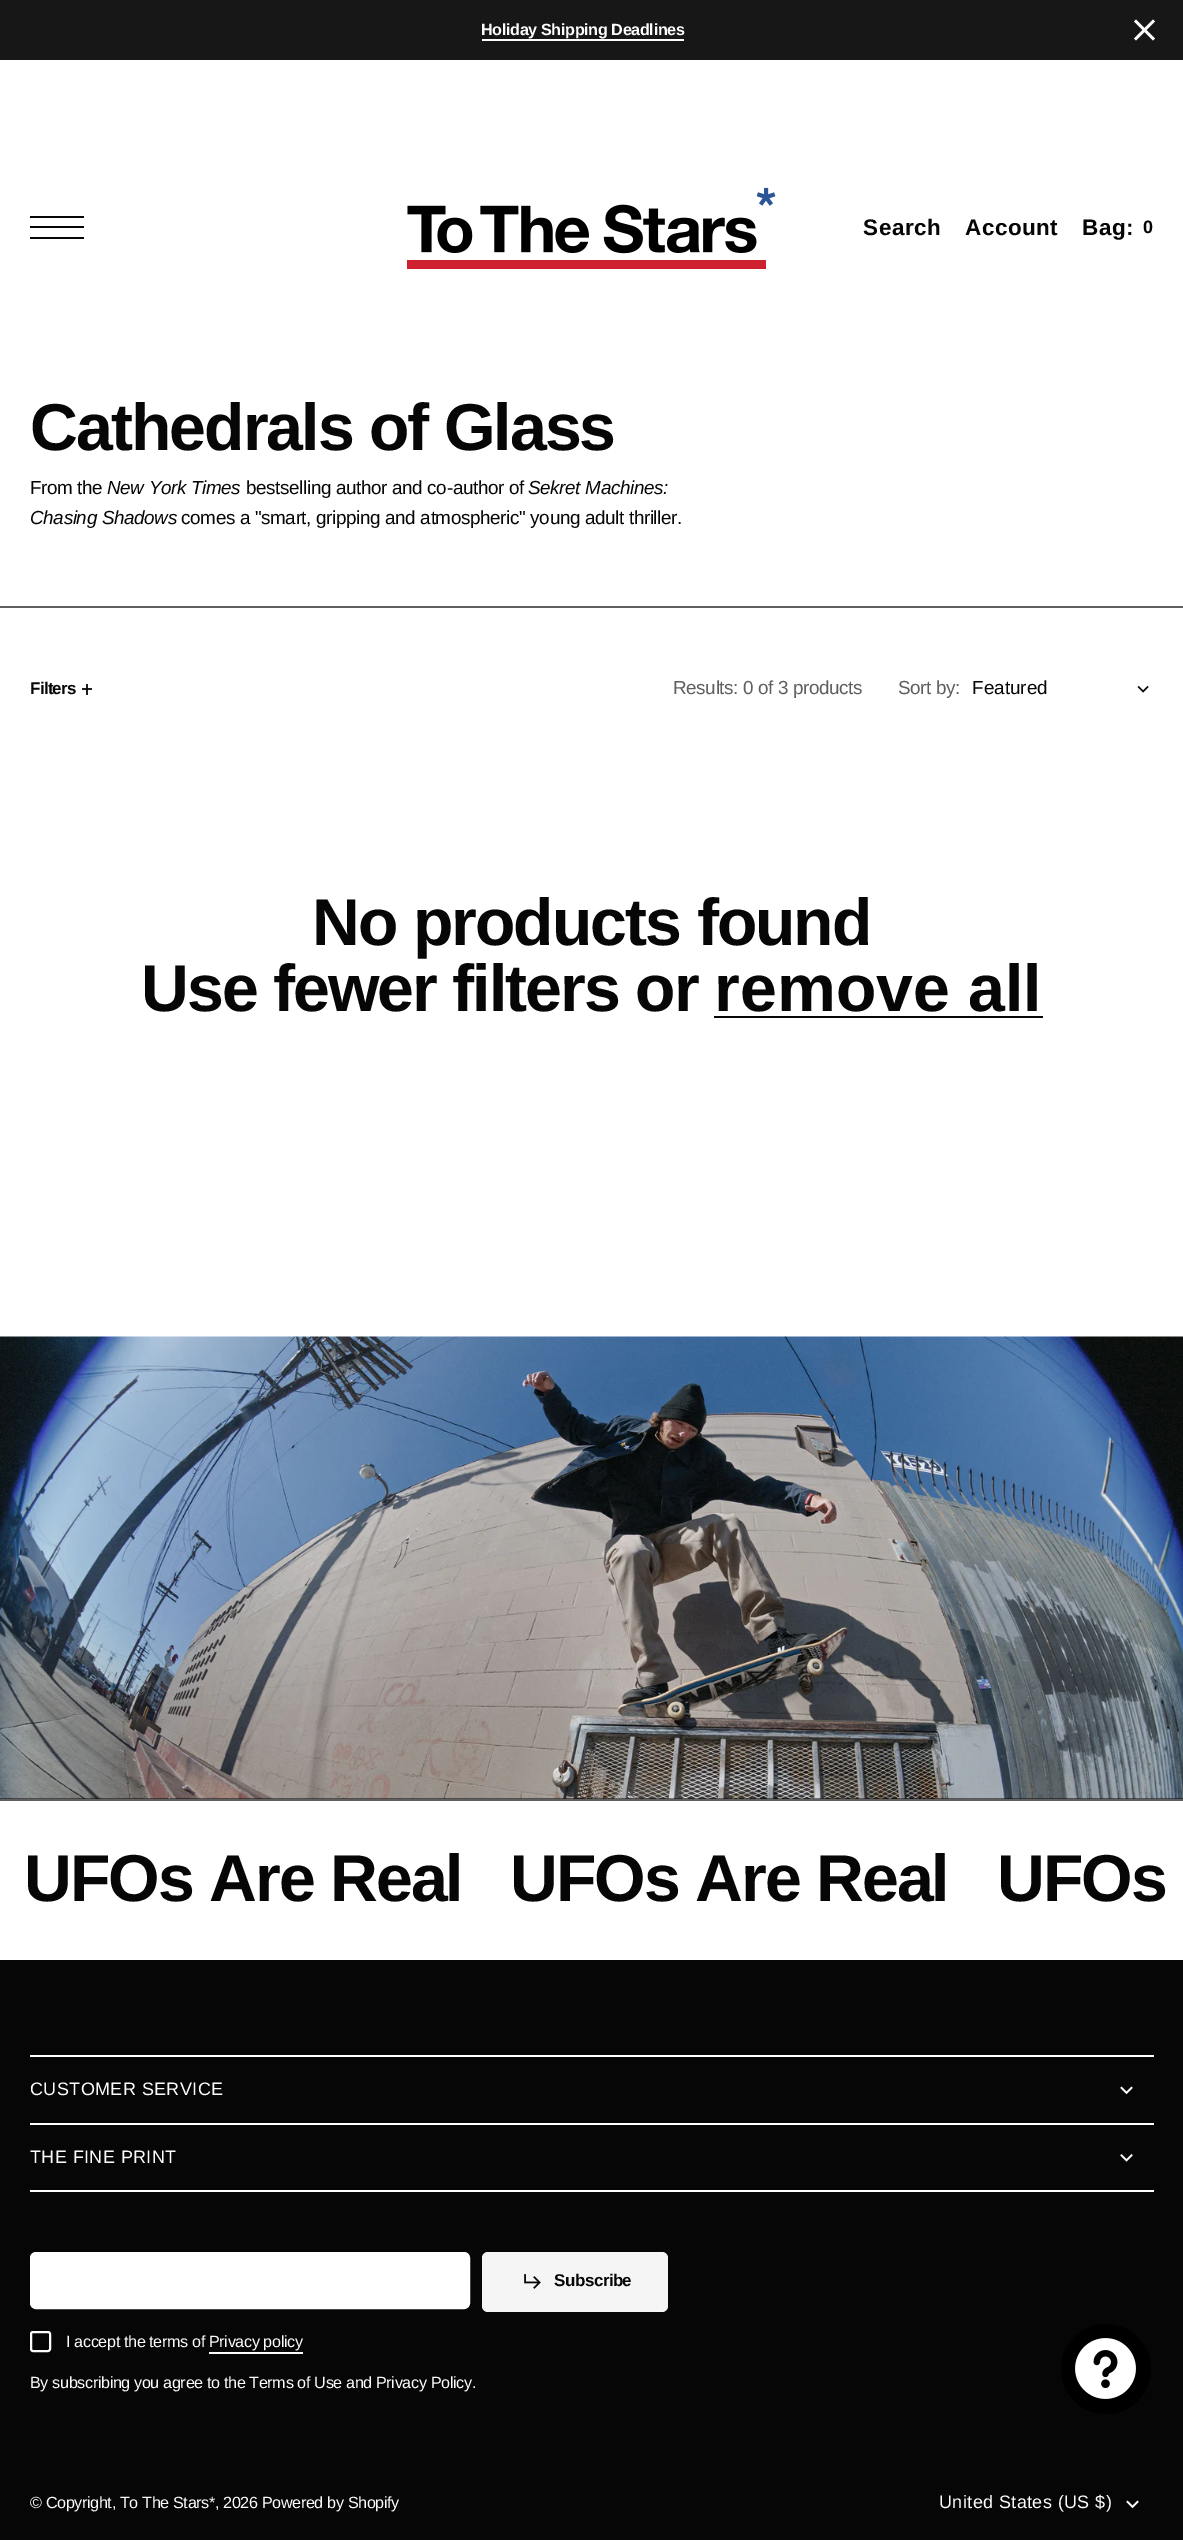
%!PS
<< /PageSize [1183 2540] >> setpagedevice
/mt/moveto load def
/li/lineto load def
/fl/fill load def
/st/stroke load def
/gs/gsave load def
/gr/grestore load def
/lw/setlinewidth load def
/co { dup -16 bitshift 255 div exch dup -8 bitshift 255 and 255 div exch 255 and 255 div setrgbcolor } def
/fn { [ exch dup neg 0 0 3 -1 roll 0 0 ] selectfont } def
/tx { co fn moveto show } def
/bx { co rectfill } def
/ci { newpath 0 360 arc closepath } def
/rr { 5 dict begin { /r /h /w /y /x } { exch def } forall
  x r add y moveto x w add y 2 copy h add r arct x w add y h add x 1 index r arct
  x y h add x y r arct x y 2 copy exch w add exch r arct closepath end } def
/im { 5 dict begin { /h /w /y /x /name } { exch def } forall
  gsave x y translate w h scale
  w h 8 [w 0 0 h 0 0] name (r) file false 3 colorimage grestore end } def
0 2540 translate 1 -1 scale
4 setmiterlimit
0 0 1183 2540 16#FFFFFF bx
82 688 10 2 16#1F1F1F bx
0 0 1183 60 16#171717 bx
482 39 202 2 16#FDFDFD bx
2.6 lw
2 setlinecap
1 setlinejoin
1153 21.5 mt 1136 38.5 li 1153 38.5 mt 1136 21.5 li st
30 216 54 2 16#060606 bx
30 226 54 2 16#060606 bx
30 237 54 2 16#060606 bx
(media/1.raw) 407 187 369 82 im
0 606 1183 2 16#5F5F5F bx
86 684 2 11 16#1F1F1F bx
86 688 2 2 16#090909 bx
(media/2.raw) 1137 685 12 8 im
714 1016 329 2 16#060606 bx
0 1798 1183 1 16#060606 bx
(media/3.raw) 0 1336 1183 463 im
0 1799 1183 2 16#5F5F5F bx
0 1960 1183 580 16#060606 bx
30 2055 1124 2 16#FFFFFF bx
30 2123 1124 2 16#FFFFFF bx
(media/4.raw) 1120 2086 13 9 im
30 2190 1124 2 16#FFFFFF bx
(media/5.raw) 1120 2154 13 8 im
31 2253 438 55 5 rr gs fl gr
2 lw
0 setlinecap
0 setlinejoin
st
16#F5F5F5 co
482 2252 186 60 6 rr fl
(media/6.raw) 524 2274 17 15 im
16#FDFDFD co
31 2332 19 19 2 rr st
209 2352 94 2 16#FDFDFD bx
(media/4.raw) 1126 2500 13 9 im
16#000000 co
1106 2369 45 ci fl
(media/7.raw) 1075 2338 61 61 im
/LiberationSans-Bold 16.2 fn
16#FDFDFD co
481 35 mt -.38 0 (Holiday Shipping Deadlines) ashow
/LiberationSans-Bold 22.5 fn
16#060606 co
863 235 mt .5 0 (Search) ashow
965 235 mt .5 0 (Account) ashow
1082 235 mt .5 0 (Bag:) ashow
/LiberationSans-Bold 18 fn
1143 233 mt .4 0 (0) ashow
/LiberationSans-Bold 66.25 fn
30 450 mt -2 0 (Cathedrals of Glass) ashow
/LiberationSans-Regular 18.9 fn
30 494 mt -.38 0 (From the) ashow
/LiberationSans-Italic 18.9 fn
107 494 mt -.38 0 (New York Times) ashow
/LiberationSans-Regular 18.9 fn
246 494 mt -.38 0 (bestselling author and co-author of) ashow
/LiberationSans-Italic 18.9 fn
528 494 mt -.38 0 (Sekret Machines:) ashow
30 524 mt -.38 0 (Chasing Shadows) ashow
/LiberationSans-Regular 18.9 fn
181 524 mt -.38 0 (comes a "smart, gripping and atmospheric" young adult thriller.) ashow
/LiberationSans-Bold 17 fn
30 694 mt -.75 0 (Filters) ashow
/LiberationSans-Regular 18.9 fn
16#5F5F5F co
673 694 mt -.38 0 (Results: 0 of 3 products) ashow
898 694 mt -.38 0 (Sort by:) ashow
(Featured) 972 694 /LiberationSans-Regular 18.9 16#060606 tx
/LiberationSans-Bold 66.25 fn
312 945 mt -2 0 (No products found) ashow
141 1011 mt -2 0 (Use fewer filters or) ashow
(remove all) 714 1011 /LiberationSans-Bold 66.25 16#060606 tx
24 1901 mt -2 0 (UFOs Are Real) ashow
510 1901 mt -2 0 (UFOs Are Real) ashow
997 1901 mt -2 0 (UFOs) ashow
/LiberationSans-Regular 18 fn
16#FDFDFD co
30 2095 mt .4 0 (CUSTOMER SERVICE) ashow
30 2163 mt .4 0 (THE FINE PRINT) ashow
/LiberationSans-Bold 17 fn
16#060606 co
554 2286 mt -.75 0 (S) ashow
565 2286 mt -.75 0 (ub) ashow
585 2286 mt -.75 0 (sc) ashow
603 2286 mt -.75 0 (r be) ashow
609 2286 mt -.75 0 (i) ashow
/LiberationSans-Regular 16.2 fn
16#FDFDFD co
66 2347 mt -.38 0 (I accept the terms of Privacy policy) ashow
30 2388 mt -.38 0 (By subscribing you agree to the Terms of Use and Privacy Policy.) ashow
30 2508 mt -.38 0 (© Copyright, To The Stars*, 2026 Powered by Shopify) ashow
/LiberationSans-Regular 18 fn
939 2508 mt .4 0 (United States \(US $\)) ashow
showpage
